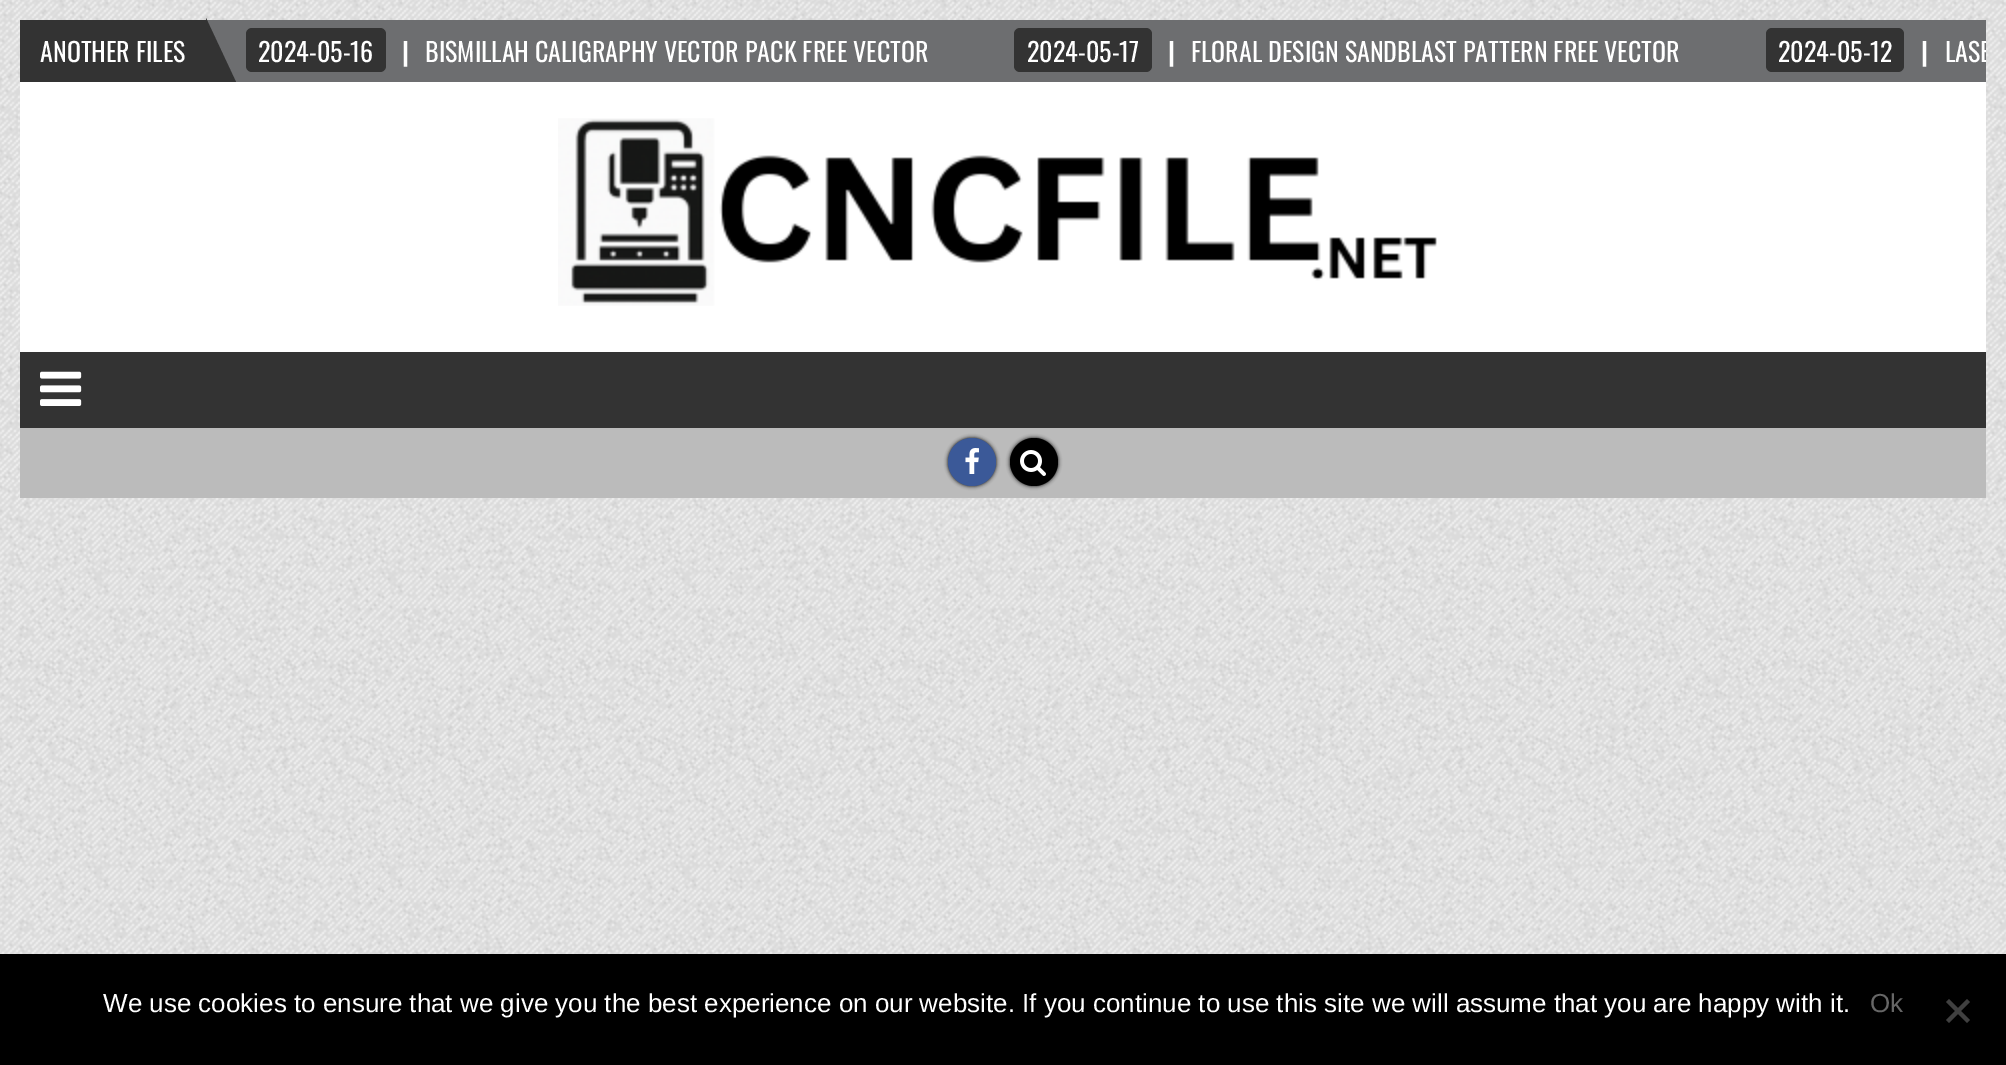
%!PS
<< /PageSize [2006 1065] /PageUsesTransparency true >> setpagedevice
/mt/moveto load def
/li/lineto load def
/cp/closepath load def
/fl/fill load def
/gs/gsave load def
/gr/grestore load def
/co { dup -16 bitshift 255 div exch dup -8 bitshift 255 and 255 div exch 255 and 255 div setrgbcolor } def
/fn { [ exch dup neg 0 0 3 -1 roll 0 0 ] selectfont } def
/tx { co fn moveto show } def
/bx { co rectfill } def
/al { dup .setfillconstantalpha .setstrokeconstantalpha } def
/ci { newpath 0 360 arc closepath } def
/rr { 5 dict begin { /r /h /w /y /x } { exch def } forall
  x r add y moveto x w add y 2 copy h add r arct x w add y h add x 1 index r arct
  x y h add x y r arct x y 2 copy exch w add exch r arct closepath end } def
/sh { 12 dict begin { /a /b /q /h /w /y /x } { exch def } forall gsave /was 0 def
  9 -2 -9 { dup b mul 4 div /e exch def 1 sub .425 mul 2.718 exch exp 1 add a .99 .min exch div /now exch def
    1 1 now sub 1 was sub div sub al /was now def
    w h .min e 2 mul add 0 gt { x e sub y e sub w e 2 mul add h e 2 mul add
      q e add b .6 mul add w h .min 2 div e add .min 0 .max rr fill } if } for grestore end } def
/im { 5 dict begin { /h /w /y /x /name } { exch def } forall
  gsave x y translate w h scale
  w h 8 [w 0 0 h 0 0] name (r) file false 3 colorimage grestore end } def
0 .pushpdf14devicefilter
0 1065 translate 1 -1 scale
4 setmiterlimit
0 0 2006 1065 16#FFFFFF bx
(media/1.raw) 0 0 2006 954 im
207 20 1779 62 16#6D6E70 bx
20 20 186 62 16#333333 bx
206 82 mt 206 18 li 236 82 li cp fl
246 28 140 44 6 rr fl
1014 28 138 44 6 rr fl
1766 28 138 44 6 rr fl
20 82 1966 270 16#FFFFFF bx
(media/2.raw) 558 118 879 188 im
20 352 1966 76 16#333333 bx
(media/3.raw) 40 371 42 35 im
20 428 1966 70 16#BBBBBB bx
16#000000 co
948 438 48 48 24 2 1 sh
16#3B5998 co
972 462 24 ci fl
(media/4.raw) 965 448 14 26 im
16#000000 co
1010 438 48 48 24 2 1 sh
1034 462 24 ci fl
(media/5.raw) 1020 450 26 26 im
0 954 2006 111 16#000000 bx
16#404040 co
1967 999 mt 1970 1002 li 1949 1023 li 1946 1020 li cp fl
1946 1002 mt 1949 999 li 1970 1020 li 1967 1023 li cp fl
(ANOTHER FILES) 40 62 /Oswald-Regular 26 16#FFFFFF tx
(2024-05-16) 258 62 /Oswald-Regular 26 16#FFFFFF tx
(|) 402 62 /Oswald-Bold 26 16#FFFFFF tx
(BISMILLAH CALIGRAPHY VECTOR PACK FREE VECTOR) 425 62 /Oswald-Regular 26 16#FFFFFF tx
(2024-05-17) 1027 62 /Oswald-Regular 26 16#FFFFFF tx
(|) 1168 62 /Oswald-Bold 26 16#FFFFFF tx
(FLORAL DESIGN SANDBLAST PATTERN FREE VECTOR) 1191 62 /Oswald-Regular 26 16#FFFFFF tx
(2024-05-12) 1778 62 /Oswald-Regular 26 16#FFFFFF tx
(|) 1921 62 /Oswald-Bold 26 16#FFFFFF tx
gs
206 20 1780 62 rectclip
(LASE) 1945 62 /Oswald-Regular 26 16#FFFFFF tx
gr
(We use cookies to ensure that we give you the best experience on our website. If you continue to use this site we will assume that you are happy with it.) 103 1012 /LiberationSans-Regular 26 16#FFFFFF tx
(Ok) 1870 1012 /LiberationSans-Regular 26 16#666666 tx
.poppdf14devicefilter showpage
